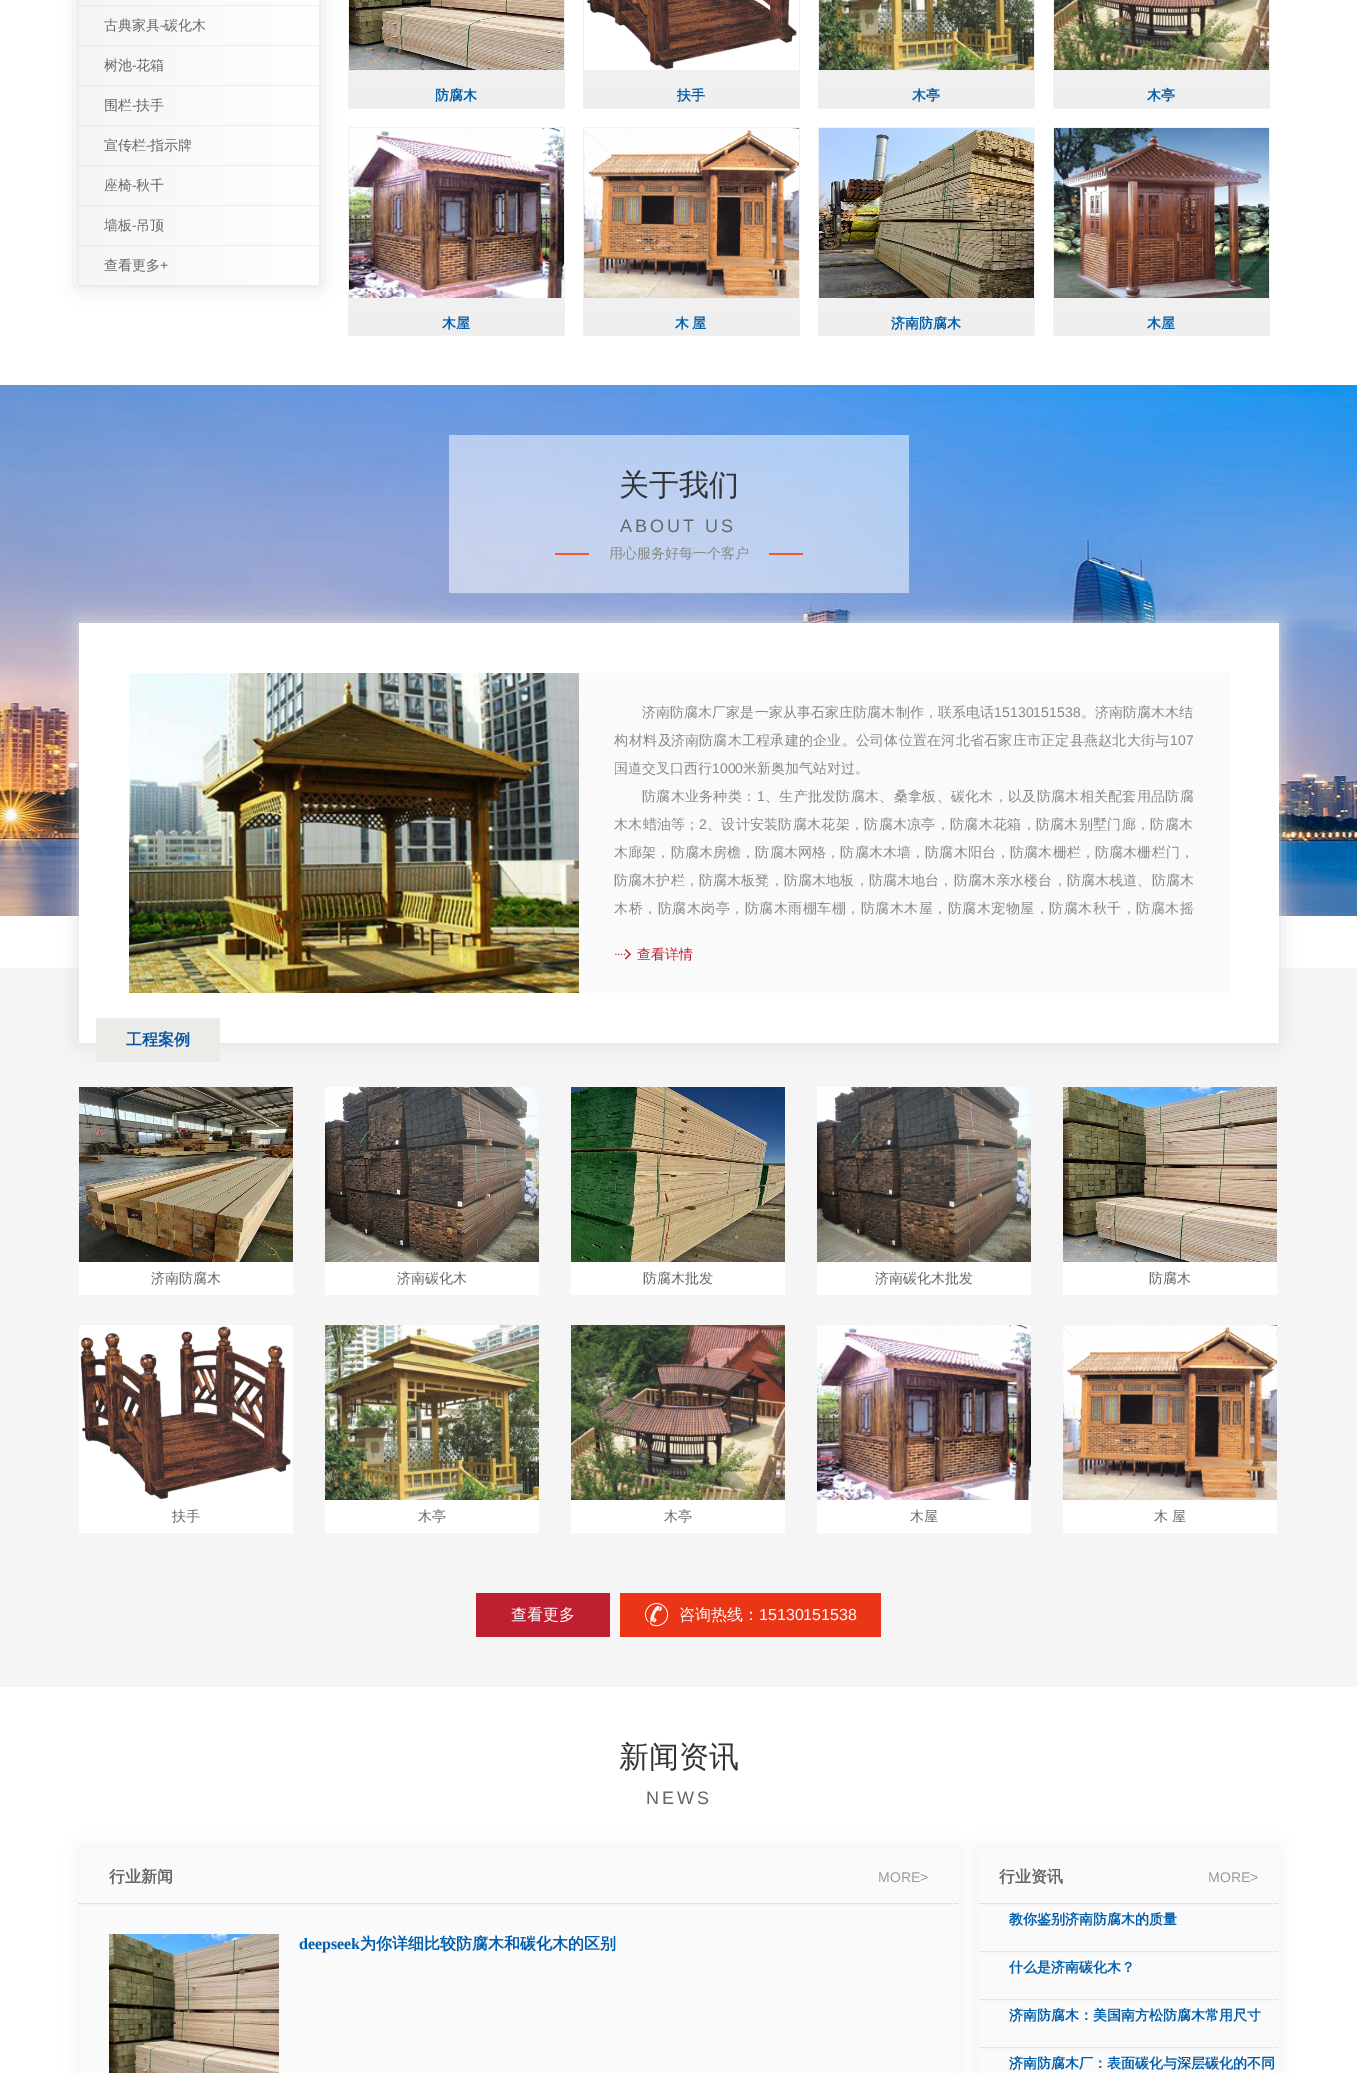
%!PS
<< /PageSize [1357 2073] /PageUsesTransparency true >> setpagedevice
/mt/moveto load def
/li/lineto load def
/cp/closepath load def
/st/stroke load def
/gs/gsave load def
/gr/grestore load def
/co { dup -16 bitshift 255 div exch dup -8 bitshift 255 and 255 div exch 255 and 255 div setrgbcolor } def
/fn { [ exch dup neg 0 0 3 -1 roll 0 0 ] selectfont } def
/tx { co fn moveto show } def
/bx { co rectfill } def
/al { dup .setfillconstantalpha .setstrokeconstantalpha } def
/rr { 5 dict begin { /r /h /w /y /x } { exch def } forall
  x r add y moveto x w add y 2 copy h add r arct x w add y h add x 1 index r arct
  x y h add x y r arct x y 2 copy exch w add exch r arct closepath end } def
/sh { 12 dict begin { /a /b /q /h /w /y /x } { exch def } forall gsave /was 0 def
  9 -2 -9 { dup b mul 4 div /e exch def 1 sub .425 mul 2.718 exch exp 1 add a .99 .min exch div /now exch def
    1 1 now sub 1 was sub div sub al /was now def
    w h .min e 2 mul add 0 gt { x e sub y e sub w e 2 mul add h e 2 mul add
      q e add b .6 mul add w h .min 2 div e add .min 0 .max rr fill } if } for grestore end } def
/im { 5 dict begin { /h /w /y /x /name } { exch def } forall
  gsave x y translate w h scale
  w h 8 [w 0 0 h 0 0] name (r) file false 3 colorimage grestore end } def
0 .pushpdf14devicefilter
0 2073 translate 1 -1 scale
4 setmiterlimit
0 0 1357 2073 16#FFFFFF bx
16#DDDDDD co
79 -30 240 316 0 10 1 sh
gs 79 0 mt 319 0 li 319 6 li 79 6 li cp clip newpath
<< /ShadingType 2 /ColorSpace /DeviceRGB /Coords [319 -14 79 -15] /Extend [true true] /Function << /FunctionType 2 /Domain [0 1] /C0 [1 1 1] /C1 [.961 .961 .961] /N 1 >> >> shfill gr
[1 1] 0 setdash
79 5.5 mt 319 5.5 li st
gs 79 6 mt 319 6 li 319 46 li 79 46 li cp clip newpath
<< /ShadingType 2 /ColorSpace /DeviceRGB /Coords [319 26 79 25] /Extend [true true] /Function << /FunctionType 2 /Domain [0 1] /C0 [1 1 1] /C1 [.961 .961 .961] /N 1 >> >> shfill gr
79 45.5 mt 319 45.5 li st
gs 79 46 mt 319 46 li 319 86 li 79 86 li cp clip newpath
<< /ShadingType 2 /ColorSpace /DeviceRGB /Coords [319 66 79 65] /Extend [true true] /Function << /FunctionType 2 /Domain [0 1] /C0 [1 1 1] /C1 [.961 .961 .961] /N 1 >> >> shfill gr
79 85.5 mt 319 85.5 li st
gs 79 86 mt 319 86 li 319 126 li 79 126 li cp clip newpath
<< /ShadingType 2 /ColorSpace /DeviceRGB /Coords [319 106 79 105] /Extend [true true] /Function << /FunctionType 2 /Domain [0 1] /C0 [1 1 1] /C1 [.961 .961 .961] /N 1 >> >> shfill gr
79 125.5 mt 319 125.5 li st
gs 79 126 mt 319 126 li 319 166 li 79 166 li cp clip newpath
<< /ShadingType 2 /ColorSpace /DeviceRGB /Coords [319 146 79 146] /Extend [true true] /Function << /FunctionType 2 /Domain [0 1] /C0 [1 1 1] /C1 [.961 .961 .961] /N 1 >> >> shfill gr
79 165.5 mt 319 165.5 li st
gs 79 166 mt 319 166 li 319 206 li 79 206 li cp clip newpath
<< /ShadingType 2 /ColorSpace /DeviceRGB /Coords [319 186 79 186] /Extend [true true] /Function << /FunctionType 2 /Domain [0 1] /C0 [1 1 1] /C1 [.961 .961 .961] /N 1 >> >> shfill gr
79 205.5 mt 319 205.5 li st
gs 79 206 mt 319 206 li 319 246 li 79 246 li cp clip newpath
<< /ShadingType 2 /ColorSpace /DeviceRGB /Coords [319 226 79 226] /Extend [true true] /Function << /FunctionType 2 /Domain [0 1] /C0 [1 1 1] /C1 [.961 .961 .961] /N 1 >> >> shfill gr
79 245.5 mt 319 245.5 li st
gs 79 246 mt 319 246 li 319 286 li 79 286 li cp clip newpath
<< /ShadingType 2 /ColorSpace /DeviceRGB /Coords [319 266 79 266] /Extend [true true] /Function << /FunctionType 2 /Domain [0 1] /C0 [1 1 1] /C1 [.961 .961 .961] /N 1 >> >> shfill gr
79 285.5 mt 319 285.5 li st
16#CCCCCC co
349 -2 215 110 0 .5 1 sh
gs 349 70 mt 564 70 li 564 108 li 349 108 li cp clip newpath
<< /ShadingType 2 /ColorSpace /DeviceRGB /Coords [457 -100 457 108] /Extend [true true] /Function << /FunctionType 2 /Domain [0 1] /C0 [1 1 1] /C1 [.933 .933 .933] /N 1 >> >> shfill gr
(media/1.raw) 349 0 215 70 im
584 -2 215 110 0 .5 1 sh
gs 584 70 mt 799 70 li 799 108 li 584 108 li cp clip newpath
<< /ShadingType 2 /ColorSpace /DeviceRGB /Coords [692 -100 692 108] /Extend [true true] /Function << /FunctionType 2 /Domain [0 1] /C0 [1 1 1] /C1 [.933 .933 .933] /N 1 >> >> shfill gr
584 0 215 70 16#FFFFFF bx
(media/2.raw) 586 0 211 70 im
16#CCCCCC co
819 -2 215 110 0 .5 1 sh
gs 819 70 mt 1034 70 li 1034 108 li 819 108 li cp clip newpath
<< /ShadingType 2 /ColorSpace /DeviceRGB /Coords [927 -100 927 108] /Extend [true true] /Function << /FunctionType 2 /Domain [0 1] /C0 [1 1 1] /C1 [.933 .933 .933] /N 1 >> >> shfill gr
(media/3.raw) 819 0 215 70 im
1054 -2 215 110 0 .5 1 sh
gs 1054 70 mt 1269 70 li 1269 108 li 1054 108 li cp clip newpath
<< /ShadingType 2 /ColorSpace /DeviceRGB /Coords [1162 -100 1162 108] /Extend [true true] /Function << /FunctionType 2 /Domain [0 1] /C0 [1 1 1] /C1 [.933 .933 .933] /N 1 >> >> shfill gr
(media/4.raw) 1054 0 215 70 im
349 128 215 207 0 .5 1 sh
gs 349 298 mt 564 298 li 564 335 li 349 335 li cp clip newpath
<< /ShadingType 2 /ColorSpace /DeviceRGB /Coords [457 128 457 335] /Extend [true true] /Function << /FunctionType 2 /Domain [0 1] /C0 [1 1 1] /C1 [.933 .933 .933] /N 1 >> >> shfill gr
(media/5.raw) 349 128 215 170 im
584 128 215 207 0 .5 1 sh
gs 584 298 mt 799 298 li 799 335 li 584 335 li cp clip newpath
<< /ShadingType 2 /ColorSpace /DeviceRGB /Coords [692 128 692 335] /Extend [true true] /Function << /FunctionType 2 /Domain [0 1] /C0 [1 1 1] /C1 [.933 .933 .933] /N 1 >> >> shfill gr
(media/6.raw) 584 128 215 170 im
819 128 215 207 0 .5 1 sh
gs 819 298 mt 1034 298 li 1034 335 li 819 335 li cp clip newpath
<< /ShadingType 2 /ColorSpace /DeviceRGB /Coords [927 128 927 335] /Extend [true true] /Function << /FunctionType 2 /Domain [0 1] /C0 [1 1 1] /C1 [.933 .933 .933] /N 1 >> >> shfill gr
(media/7.raw) 819 128 215 170 im
1054 128 215 207 0 .5 1 sh
gs 1054 298 mt 1269 298 li 1269 335 li 1054 335 li cp clip newpath
<< /ShadingType 2 /ColorSpace /DeviceRGB /Coords [1162 128 1162 335] /Extend [true true] /Function << /FunctionType 2 /Domain [0 1] /C0 [1 1 1] /C1 [.933 .933 .933] /N 1 >> >> shfill gr
(media/8.raw) 1054 128 215 170 im
(media/9.raw) 0 385 1357 531 im
0.5 al
449 435 460 158 16#FFFFFF bx
1 al
555 553 34 2 16#F0592D bx
769 553 34 2 16#F0592D bx
0 968 1357 719 16#F5F5F5 bx
16#DDDDDD co
79 623 1200 420 0 10 1 sh
79 623 1200 420 16#FFFFFF bx
(media/10.raw) 129 673 450 320 im
579 673 650 320 16#FAFAFA bx
(media/11.raw) 615 949 16 11 im
96 1018 124 44 16#ECEBE8 bx
79 1262 214 33 16#FFFFFF bx
(media/12.raw) 79 1087 214 175 im
325 1262 214 33 16#FFFFFF bx
(media/13.raw) 325 1087 214 175 im
571 1262 214 33 16#FFFFFF bx
(media/14.raw) 571 1087 214 175 im
817 1262 214 33 16#FFFFFF bx
(media/15.raw) 817 1087 214 175 im
1063 1262 214 33 16#FFFFFF bx
(media/16.raw) 1063 1087 214 175 im
79 1325 214 208 16#FFFFFF bx
(media/17.raw) 80 1326 211 174 im
325 1500 214 33 16#FFFFFF bx
(media/18.raw) 325 1325 214 175 im
571 1500 214 33 16#FFFFFF bx
(media/19.raw) 571 1325 214 175 im
817 1500 214 33 16#FFFFFF bx
(media/20.raw) 817 1325 214 175 im
1063 1500 214 33 16#FFFFFF bx
(media/21.raw) 1063 1325 214 175 im
476 1593 134 44 16#C01F31 bx
620 1593 261 44 16#EA3516 bx
(media/22.raw) 645 1603 24 24 im
16#EEEEEE co
79 1847 880 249 0 7.5 1 sh
79 1847 880 226 16#FAFAFA bx
16#CACACA co
79 1903.5 mt 959 1903.5 li st
(media/23.raw) 109 1934 170 139 im
16#EEEEEE co
979 1847 300 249 0 7.5 1 sh
979 1847 300 226 16#FAFAFA bx
16#CACACA co
979 1903.5 mt 1279 1903.5 li st
16#D2D2D2 co
979 1951.5 mt 1279 1951.5 li st
979 1999.5 mt 1279 1999.5 li st
979 2047.5 mt 1279 2047.5 li st
(古典家具) 104 30 /WenQuanYiZenHei-Medium 14 16#666666 tx
(-) 160 30 /LiberationSans-Regular 14 16#666666 tx
(碳化木) 164 30 /WenQuanYiZenHei-Medium 14 16#666666 tx
(树池) 104 70 /WenQuanYiZenHei-Medium 14 16#666666 tx
(-) 132 70 /LiberationSans-Regular 14 16#666666 tx
(花箱) 136 70 /WenQuanYiZenHei-Medium 14 16#666666 tx
(围栏) 104 110 /WenQuanYiZenHei-Medium 14 16#666666 tx
(-) 132 110 /LiberationSans-Regular 14 16#666666 tx
(扶手) 136 110 /WenQuanYiZenHei-Medium 14 16#666666 tx
(宣传栏) 104 150 /WenQuanYiZenHei-Medium 14 16#666666 tx
(-) 146 150 /LiberationSans-Regular 14 16#666666 tx
(指示牌) 150 150 /WenQuanYiZenHei-Medium 14 16#666666 tx
(座椅) 104 190 /WenQuanYiZenHei-Medium 14 16#666666 tx
(-) 132 190 /LiberationSans-Regular 14 16#666666 tx
(秋千) 136 190 /WenQuanYiZenHei-Medium 14 16#666666 tx
(墙板) 104 230 /WenQuanYiZenHei-Medium 14 16#666666 tx
(-) 132 230 /LiberationSans-Regular 14 16#666666 tx
(吊顶) 136 230 /WenQuanYiZenHei-Medium 14 16#666666 tx
(查看更多) 104 270 /WenQuanYiZenHei-Medium 14 16#666666 tx
(+) 160 270 /LiberationSans-Regular 14 16#666666 tx
(防腐木) 435 100 /WenQuanYiZenHei-Bold 14 16#005EAC tx
(扶手) 677 100 /WenQuanYiZenHei-Bold 14 16#005EAC tx
(木亭) 912 100 /WenQuanYiZenHei-Bold 14 16#005EAC tx
(木亭) 1147 100 /WenQuanYiZenHei-Bold 14 16#005EAC tx
(木屋) 442 328 /WenQuanYiZenHei-Bold 14 16#005EAC tx
675 328 mt -1 0 32 (木 屋) widthshow
(济南防腐木) 891 328 /WenQuanYiZenHei-Bold 14 16#005EAC tx
(木屋) 1147 328 /WenQuanYiZenHei-Bold 14 16#005EAC tx
(关于我们) 619 495 /WenQuanYiZenHei-Medium 30 16#333333 tx
/LiberationSans-Regular 18 fn
16#666666 co
620 532 mt 3 0 (ABOUT US) ashow
(用心服务好每一个客户) 609 558 /WenQuanYiZenHei-Medium 14 16#888888 tx
(济南) 642 717 /WenQuanYiZenHei-Medium 14 16#888888 tx
670 717 mt .1 0 (防腐木厂家是一家从事石家庄防腐木制作，联系电话) ashow
/LiberationSans-Regular 14 fn
994 717 mt .1 0 (15130151538) ashow
/WenQuanYiZenHei-Medium 14 fn
1081 717 mt .1 0 (。) ashow
(济南) 1095 717 /WenQuanYiZenHei-Medium 14 16#888888 tx
(防腐木木结) 1123 717 /WenQuanYiZenHei-Medium 14 16#888888 tx
614 745 mt .5 0 (构材料及) ashow
(济南) 671 745 /WenQuanYiZenHei-Medium 14 16#888888 tx
699 745 mt .25 0 (防腐木工程承建的企业。公司体位置在河北省石家庄市正定县燕赵北大街与) ashow
/LiberationSans-Regular 14 fn
1170 745 mt .25 0 (107) ashow
(国道交叉口西行) 614 773 /WenQuanYiZenHei-Medium 14 16#888888 tx
(1000) 712 773 /LiberationSans-Regular 14 16#888888 tx
(米新奥加气站对过。) 743 773 /WenQuanYiZenHei-Medium 14 16#888888 tx
642 801 mt .3 0 (防腐木业务种类：) ashow
/LiberationSans-Regular 14 fn
757 801 mt .3 0 (1) ashow
/WenQuanYiZenHei-Medium 14 fn
765 801 mt .3 0 (、生产批发防腐木、桑拿板、碳化木，以及防腐木相关配套用品防腐) ashow
614 829 mt .3 0 (木木蜡油等；) ashow
/LiberationSans-Regular 14 fn
699 829 mt .3 0 (2) ashow
/WenQuanYiZenHei-Medium 14 fn
707 829 mt .3 0 (、设计安装防腐木花架，防腐木凉亭，防腐木花箱，防腐木别墅门廊，防腐木) ashow
614 857 mt .15 0 (木廊架，防腐木房檐，防腐木网格，防腐木木墙，防腐木阳台，防腐木栅栏，防腐木栅栏门，) ashow
614 885 mt .15 0 (防腐木护栏，防腐木板凳，防腐木地板，防腐木地台，防腐木亲水楼台，防腐木栈道、防腐木) ashow
614 913 mt .5 0 (木桥，防腐木岗亭，防腐木雨棚车棚，防腐木木屋，防腐木宠物屋，防腐木秋千，防腐木摇) ashow
(查看详情) 637 959 /WenQuanYiZenHei-Medium 14 16#C01F31 tx
(工程案例) 126 1045 /WenQuanYiZenHei-Bold 16 16#0252A3 tx
(济南防腐木) 151 1283 /WenQuanYiZenHei-Medium 14 16#666666 tx
(济南碳化木) 397 1283 /WenQuanYiZenHei-Medium 14 16#666666 tx
(防腐木批发) 643 1283 /WenQuanYiZenHei-Medium 14 16#666666 tx
(济南碳化木批发) 875 1283 /WenQuanYiZenHei-Medium 14 16#666666 tx
(防腐木) 1149 1283 /WenQuanYiZenHei-Medium 14 16#666666 tx
(扶手) 172 1521 /WenQuanYiZenHei-Medium 14 16#666666 tx
(木亭) 418 1521 /WenQuanYiZenHei-Medium 14 16#666666 tx
(木亭) 664 1521 /WenQuanYiZenHei-Medium 14 16#666666 tx
(木屋) 910 1521 /WenQuanYiZenHei-Medium 14 16#666666 tx
(木 屋) 1154 1521 /WenQuanYiZenHei-Medium 14 16#666666 tx
(查看更多) 511 1620 /WenQuanYiZenHei-Medium 16 16#FFFFFF tx
(咨询热线：) 679 1620 /WenQuanYiZenHei-Medium 16 16#FFFFFF tx
(15130151538) 759 1620 /LiberationSans-Regular 16 16#FFFFFF tx
(新闻资讯) 619 1767 /WenQuanYiZenHei-Medium 30 16#333333 tx
/LiberationSans-Regular 18 fn
16#666666 co
646 1804 mt 3 0 (NEWS) ashow
(行业新闻) 109 1882 /WenQuanYiZenHei-Bold 16 16#666666 tx
(MORE>) 878 1882 /LiberationSans-Regular 14 16#999999 tx
(deepseek) 299 1949 /LiberationSerif-Bold 16 16#005EAC tx
(为你详细比较防腐木和碳化木的区别) 360 1949 /WenQuanYiZenHei-Bold 16 16#005EAC tx
(行业资讯) 999 1882 /WenQuanYiZenHei-Bold 16 16#666666 tx
(MORE>) 1208 1882 /LiberationSans-Regular 14 16#999999 tx
(教你鉴别济南防腐木的质量) 1009 1924 /WenQuanYiZenHei-Bold 14 16#005EAC tx
(什么是济南碳化木？) 1009 1972 /WenQuanYiZenHei-Bold 14 16#005EAC tx
(济南防腐木：美国南方松防腐木常用尺寸) 1009 2020 /WenQuanYiZenHei-Bold 14 16#005EAC tx
(济南防腐木厂：表面碳化与深层碳化的不同) 1009 2068 /WenQuanYiZenHei-Bold 14 16#005EAC tx
.poppdf14devicefilter showpage
